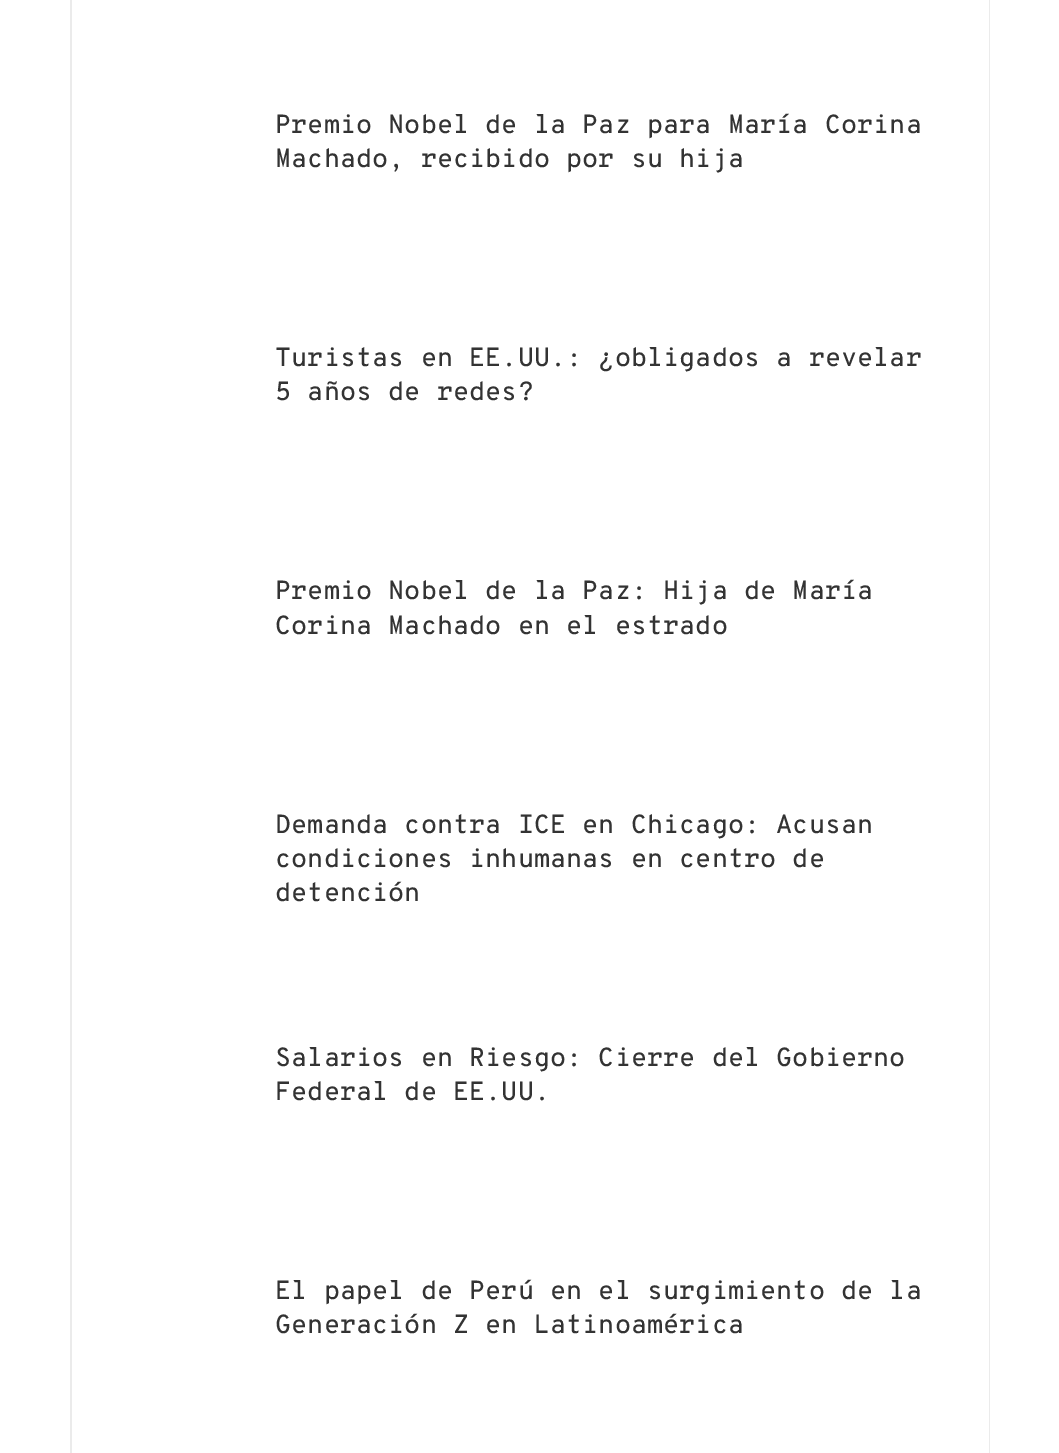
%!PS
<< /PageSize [1059 1453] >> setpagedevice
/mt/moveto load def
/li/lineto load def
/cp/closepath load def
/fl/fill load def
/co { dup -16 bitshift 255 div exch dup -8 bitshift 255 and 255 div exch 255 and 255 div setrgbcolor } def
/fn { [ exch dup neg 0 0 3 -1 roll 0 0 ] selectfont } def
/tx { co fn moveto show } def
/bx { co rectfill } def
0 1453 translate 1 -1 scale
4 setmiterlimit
0 0 1059 1453 16#FFFFFF bx
16#EBEBEB co
990 -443 mt 990 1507 li 989 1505 li 989 -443 li cp fl
70 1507 mt 70 -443 li 72 -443 li 72 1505 li cp fl
(Premio Nobel de la Paz para María Corina) 275 133 /OverpassMono-Medium 26.25 16#333333 tx
(Machado, recibido por su hija) 275 167 /OverpassMono-Medium 26.25 16#333333 tx
(Turistas en EE.UU.: ¿obligados a revelar) 275 366 /OverpassMono-Medium 26.25 16#333333 tx
(5 años de redes?) 275 400 /OverpassMono-Medium 26.25 16#333333 tx
(Premio Nobel de la Paz: Hija de María) 275 599 /OverpassMono-Medium 26.25 16#333333 tx
(Corina Machado en el estrado) 275 634 /OverpassMono-Medium 26.25 16#333333 tx
(Demanda contra ICE en Chicago: Acusan) 275 833 /OverpassMono-Medium 26.25 16#333333 tx
(condiciones inhumanas en centro de) 275 867 /OverpassMono-Medium 26.25 16#333333 tx
(detención) 275 901 /OverpassMono-Medium 26.25 16#333333 tx
(Salarios en Riesgo: Cierre del Gobierno) 275 1066 /OverpassMono-Medium 26.25 16#333333 tx
(Federal de EE.UU.) 275 1100 /OverpassMono-Medium 26.25 16#333333 tx
(El papel de Perú en el surgimiento de la) 275 1299 /OverpassMono-Medium 26.25 16#333333 tx
(Generación Z en Latinoamérica) 275 1333 /OverpassMono-Medium 26.25 16#333333 tx
showpage
